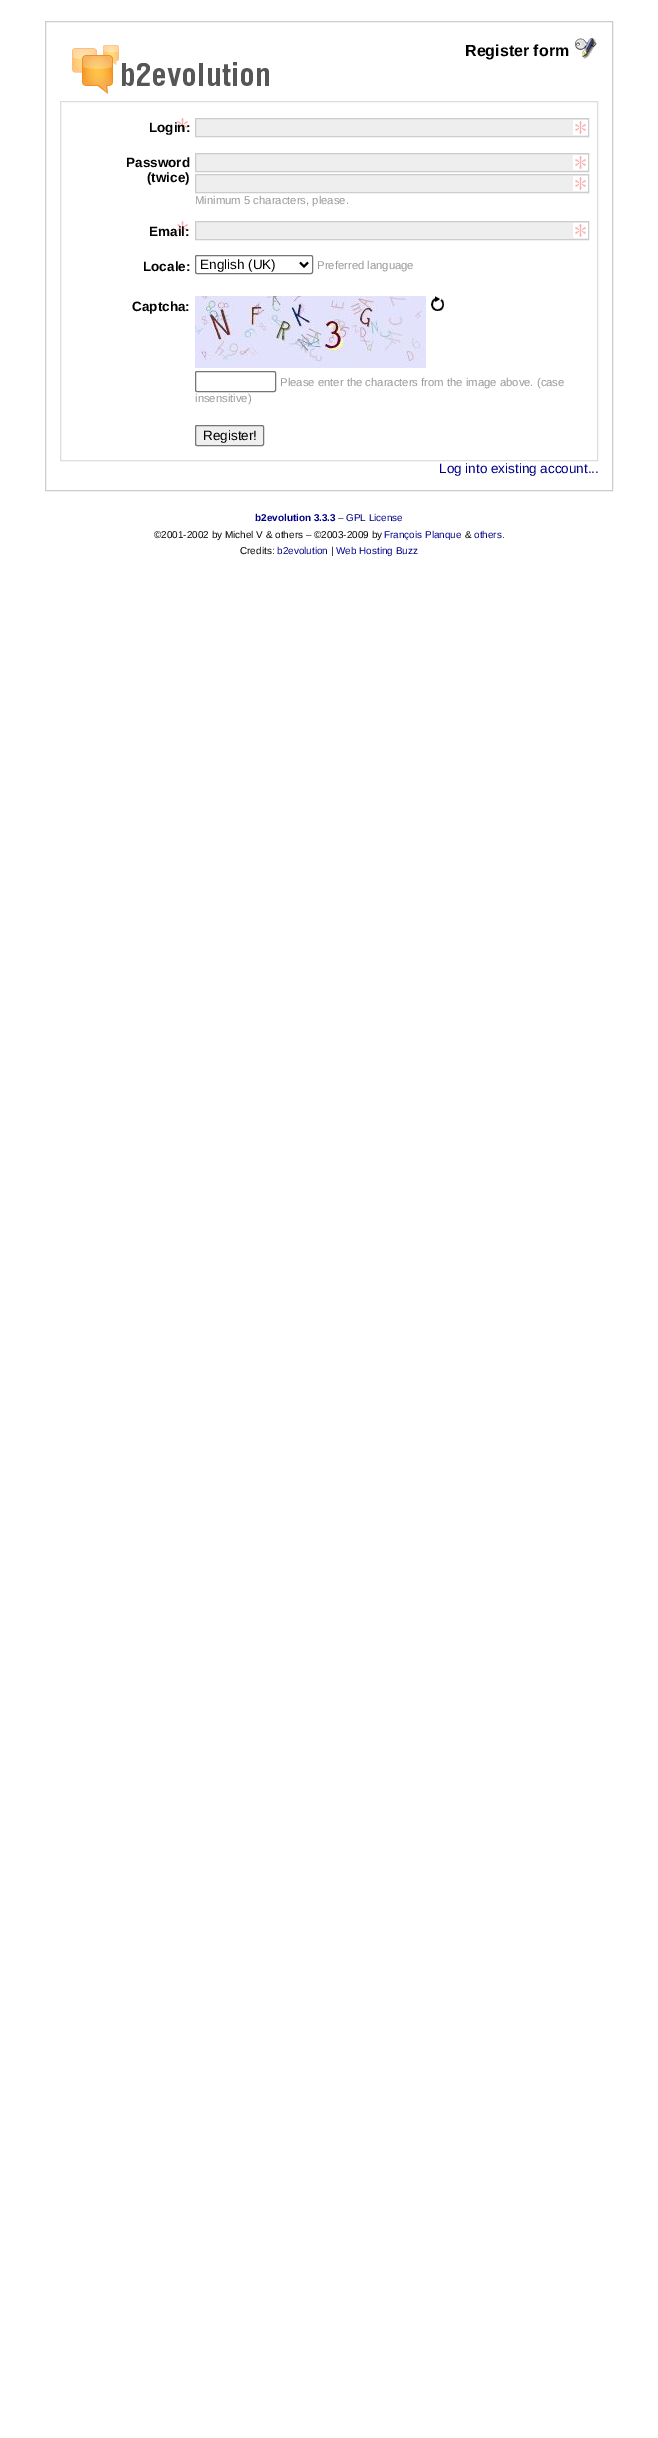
%!PS
<< /PageSize [658 2438] >> setpagedevice
/mt/moveto load def
/li/lineto load def
/fl/fill load def
/st/stroke load def
/gs/gsave load def
/gr/grestore load def
/lw/setlinewidth load def
/co { dup -16 bitshift 255 div exch dup -8 bitshift 255 and 255 div exch 255 and 255 div setrgbcolor } def
/fn { [ exch dup neg 0 0 3 -1 roll 0 0 ] selectfont } def
/tx { co fn moveto show } def
/bx { co rectfill } def
/rr { 5 dict begin { /r /h /w /y /x } { exch def } forall
  x r add y moveto x w add y 2 copy h add r arct x w add y h add x 1 index r arct
  x y h add x y r arct x y 2 copy exch w add exch r arct closepath end } def
/im { 5 dict begin { /h /w /y /x /name } { exch def } forall
  gsave x y translate w h scale
  w h 8 [w 0 0 h 0 0] name (r) file false 3 colorimage grestore end } def
0 2438 translate 1 -1 scale
4 setmiterlimit
0 0 658 2438 16#FFFFFF bx
16#CCCCCC co
45.5 21.5 567 469 rectstroke
(media/1.raw) 72 45 197 49 im
(media/2.raw) 575 38 22 22 im
16#DDDDDD co
60.5 101.5 537 359 rectstroke
(media/3.raw) 177 118 11 13 im
196 119 392 17 16#EEEEEE bx
(media/4.raw) 573 120 15 15 im
16#CCCCCC co
195.5 118.5 393 18 rectstroke
196 154 392 17 16#EEEEEE bx
(media/4.raw) 573 155 15 15 im
16#CCCCCC co
195.5 153.5 393 18 rectstroke
196 175 392 17 16#EEEEEE bx
(media/4.raw) 573 176 15 15 im
16#CCCCCC co
195.5 174.5 393 18 rectstroke
(media/3.raw) 177 221 11 13 im
196 222 392 17 16#EEEEEE bx
(media/4.raw) 573 223 15 15 im
16#CCCCCC co
195.5 221.5 393 18 rectstroke
16#767676 co
195.5 255.5 117 18 1.5 rr st
16#000000 co
2 lw
300 262.5 mt 304 266.5 li 308 262.5 li st
(media/5.raw) 195 296 231 72 im
(media/6.raw) 431 296 13 15 im
16#767676 co
1 lw
195.5 371.5 80 20 1.5 rr st
16#EFEFEF co
195.5 425.5 68 20 1.5 rr gs fl gr
16#767676 co
st
(Register form) 465 56 /LiberationSans-Bold 16 16#000000 tx
(Login:) 149 132 /LiberationSans-Bold 13.5 16#000000 tx
(Password) 126 167 /LiberationSans-Bold 13.5 16#000000 tx
(\(twice\)) 147 182 /LiberationSans-Bold 13.5 16#000000 tx
(Minimum 5 characters, please.) 195 204 /LiberationSans-Regular 11.3 16#999999 tx
(Email:) 149 236 /LiberationSans-Bold 13.5 16#000000 tx
(Locale:) 143 271 /LiberationSans-Bold 13.5 16#000000 tx
(English \(UK\)) 200 269 /LiberationSans-Regular 13.5 16#000000 tx
(Preferred language) 317 269 /LiberationSans-Regular 11.3 16#999999 tx
(Captcha:) 132 311 /LiberationSans-Bold 13.5 16#000000 tx
(Please enter the characters from the image above. \(case) 280 386 /LiberationSans-Regular 11.3 16#999999 tx
(insensitive\)) 195 402 /LiberationSans-Regular 11.3 16#999999 tx
(Register!) 203 440 /LiberationSans-Regular 13.5 16#000000 tx
(Log into existing account...) 439 473 /LiberationSans-Regular 13.5 16#000088 tx
(b2evolution 3.3.3) 255 521 /LiberationSans-Bold 9.95 16#000088 tx
(–) 338 521 /LiberationSans-Regular 9.95 16#000000 tx
(GPL License) 346 521 /LiberationSans-Regular 9.95 16#000088 tx
(©2001-2002 by Michel V & others – ©2003-2009 by) 154 538 /LiberationSans-Regular 9.95 16#000000 tx
(François Planque) 384 538 /LiberationSans-Regular 9.95 16#000088 tx
(&) 465 538 /LiberationSans-Regular 9.95 16#000000 tx
(others) 474 538 /LiberationSans-Regular 9.95 16#000088 tx
(.) 502 538 /LiberationSans-Regular 9.95 16#000000 tx
(Credits:) 240 554 /LiberationSans-Regular 9.95 16#000000 tx
(b2evolution) 277 554 /LiberationSans-Regular 9.95 16#000088 tx
(|) 331 554 /LiberationSans-Regular 9.95 16#000000 tx
(Web Hosting Buzz) 336 554 /LiberationSans-Regular 9.95 16#000088 tx
showpage
